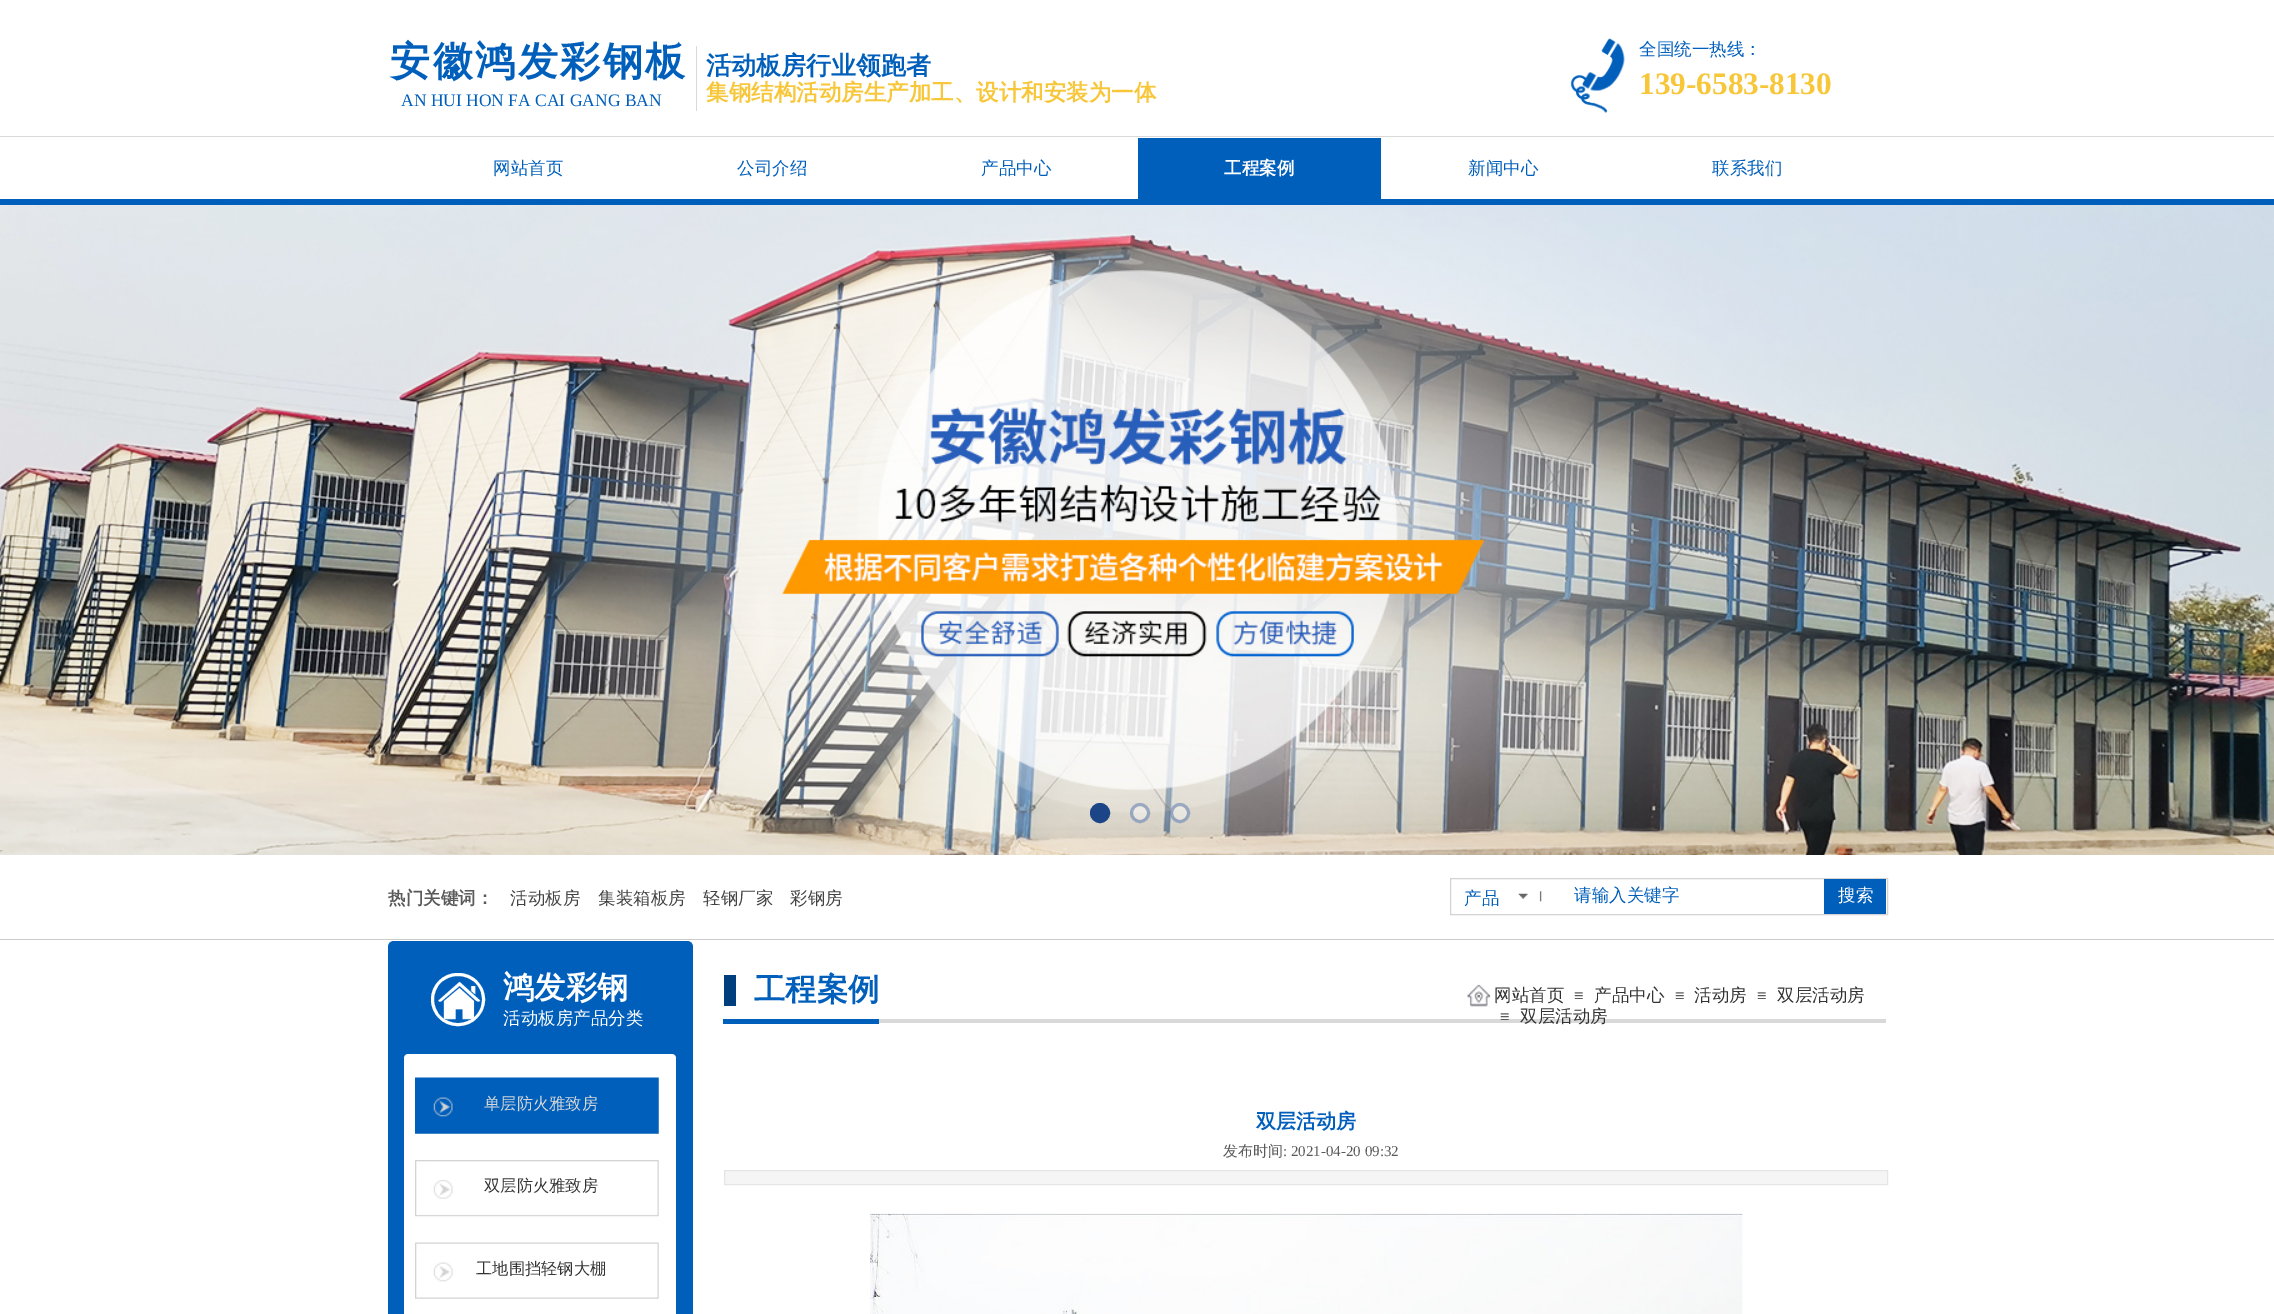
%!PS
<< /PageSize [2274 1314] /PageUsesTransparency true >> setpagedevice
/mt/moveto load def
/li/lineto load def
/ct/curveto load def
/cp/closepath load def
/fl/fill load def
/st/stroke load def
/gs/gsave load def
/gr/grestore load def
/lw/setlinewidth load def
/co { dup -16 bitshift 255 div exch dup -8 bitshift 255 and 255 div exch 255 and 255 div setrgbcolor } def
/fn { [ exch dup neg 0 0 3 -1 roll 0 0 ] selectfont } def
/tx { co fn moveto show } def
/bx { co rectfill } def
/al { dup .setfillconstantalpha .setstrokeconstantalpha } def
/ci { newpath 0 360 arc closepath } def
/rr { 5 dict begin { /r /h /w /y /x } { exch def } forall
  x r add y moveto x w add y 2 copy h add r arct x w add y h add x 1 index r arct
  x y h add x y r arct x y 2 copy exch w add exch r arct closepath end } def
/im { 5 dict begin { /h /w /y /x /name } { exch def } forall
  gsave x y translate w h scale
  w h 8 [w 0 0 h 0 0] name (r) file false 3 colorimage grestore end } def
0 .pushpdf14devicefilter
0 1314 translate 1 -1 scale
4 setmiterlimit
0 0 2274 1314 16#FFFFFF bx
696 46 1 65 16#D9D9D9 bx
(media/1.raw) 1570 38 55 75 im
0 136 2274 1 16#D9D9D9 bx
1138 138 243 61 16#005FBB bx
0 199 2274 6 16#005FBB bx
(media/2.raw) 0 205 2274 650 im
16#1C4587 co
1100 813 8.5 ci gs fl gr
3 lw
st
0.4 al
16#FFFFFF co
1140 813 10 ci fl
16#1C4587 co
1140 813 8.5 ci st
16#FFFFFF co
1180 813 10 ci fl
16#1C4587 co
1180 813 8.5 ci st
1 al
16#D3D3D3 co
1 lw
1450.5 878.5 437 36 rectstroke
(media/3.raw) 1518 891 24 11 im
1824 879 62 35 16#005FBB bx
0 939 2274 1 16#CCCCCC bx
16#005FBB co
394 941 mt 687 941 li 690.5 941 693 943.5 693 947 ct 693 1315 li 388 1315 li 388 947 li 388 943.5 390.5 941 394 941 ct cp fl
16#FFFFFF co
3 lw
432.5 974.5 51 50 25 rr st
(media/4.raw) 438 981 43 39 im
724 975 12 31 16#003F7D bx
879 1019 1007 4 16#D9D9D9 bx
(media/5.raw) 1467 984 24 23 im
723 1019 156 5 16#005FBB bx
16#FFFFFF co
408 1054 mt 672 1054 li 674 1054 676 1056 676 1058 ct 676 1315 li 404 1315 li 404 1058 li 404 1056 406 1054 408 1054 ct cp fl
(media/6.raw) 415 1077 244 57 im
(media/7.raw) 415 1160 244 57 im
(media/8.raw) 415 1242 244 57 im
16#F5F5F5 co
724.5 1170.5 mt 1887.5 1170.5 li 1887.5 1184.5 li 724.5 1184.5 li cp gs fl gr
16#E5E5E5 co
1 lw
st
(media/9.raw) 870 1213 873 101 im
/WenQuanYiZenHei-Bold 40 fn
16#005FBB co
390 75 mt 2.5 0 (安徽鸿发彩钢板) ashow
(活动板房行业领跑者) 706 74 /WenQuanYiZenHei-Bold 25 16#005FBB tx
(全国统一热线：) 1639 55 /WenQuanYiZenHei-Medium 17.5 16#005FBB tx
(139-6583-8130) 1639 94 /LiberationSerif-Bold 31.25 16#F7C639 tx
(AN HUI HON FA CAI GANG BAN) 401 106 /LiberationSerif-Regular 17.5 16#005FBB tx
(集钢结构活动房生产加工、设计和安装为一体) 706 100 /WenQuanYiZenHei-Bold 22.5 16#F7C639 tx
(网站首页) 493 174 /WenQuanYiZenHei-Medium 17.5 16#005FBB tx
(公司介绍) 737 174 /WenQuanYiZenHei-Medium 17.5 16#005FBB tx
(产品中心) 981 174 /WenQuanYiZenHei-Medium 17.5 16#005FBB tx
(工程案例) 1224 174 /WenQuanYiZenHei-Bold 17.5 16#FFFFFF tx
(新闻中心) 1468 174 /WenQuanYiZenHei-Medium 17.5 16#005FBB tx
(联系我们) 1712 174 /WenQuanYiZenHei-Medium 17.5 16#005FBB tx
(热门关键词：) 388 904 /WenQuanYiZenHei-Bold 17.5 16#5A5A5A tx
(活动板房) 510 904 /WenQuanYiZenHei-Medium 17.5 16#434343 tx
(集装箱板房) 598 904 /WenQuanYiZenHei-Medium 17.5 16#434343 tx
(轻钢厂家) 703 904 /WenQuanYiZenHei-Medium 17.5 16#434343 tx
(彩钢房) 790 904 /WenQuanYiZenHei-Medium 17.5 16#434343 tx
(产品) 1464 904 /WenQuanYiZenHei-Medium 17.5 16#005FBB tx
(请输入关键字) 1574 901 /WenQuanYiZenHei-Medium 17.5 16#005FBB tx
(搜索) 1838 901 /WenQuanYiZenHei-Medium 17.5 16#FFFFFF tx
(鸿发彩钢) 503 998 /WenQuanYiZenHei-Bold 31.25 16#FFFFFF tx
(工程案例) 754 1000 /WenQuanYiZenHei-Bold 31.25 16#005FBB tx
(网站首页) 1494 1001 /WenQuanYiZenHei-Medium 17.5 16#333333 tx
(≡) 1574 1001 /LiberationSans-Regular 16.25 16#5A5A5A tx
(产品中心) 1594 1001 /WenQuanYiZenHei-Medium 17.5 16#333333 tx
(≡) 1675 1001 /LiberationSans-Regular 16.25 16#5A5A5A tx
(活动房) 1694 1001 /WenQuanYiZenHei-Medium 17.5 16#333333 tx
(≡) 1757 1001 /LiberationSans-Regular 16.25 16#5A5A5A tx
(双层活动房) 1777 1001 /WenQuanYiZenHei-Medium 17.5 16#333333 tx
(≡) 1500 1022 /LiberationSans-Regular 16.25 16#5A5A5A tx
(双层活动房) 1520 1022 /WenQuanYiZenHei-Medium 17.5 16#333333 tx
(活动板房产品分类) 503 1024 /WenQuanYiZenHei-Medium 17.5 16#FFFFFF tx
(单层防火雅致房) 484 1109 /WenQuanYiZenHei-Medium 16.25 16#D9D9D9 tx
(双层防火雅致房) 484 1191 /WenQuanYiZenHei-Medium 16.25 16#333333 tx
(工地围挡轻钢大棚) 476 1274 /WenQuanYiZenHei-Medium 16.25 16#333333 tx
(双层活动房) 1256 1128 /WenQuanYiZenHei-Bold 20 16#005FBB tx
(发布时间) 1223 1156 /WenQuanYiZenHei-Medium 15 16#5A5A5A tx
(: 2021-04-20 09:32) 1283 1156 /LiberationSerif-Regular 15 16#5A5A5A tx
.poppdf14devicefilter showpage
